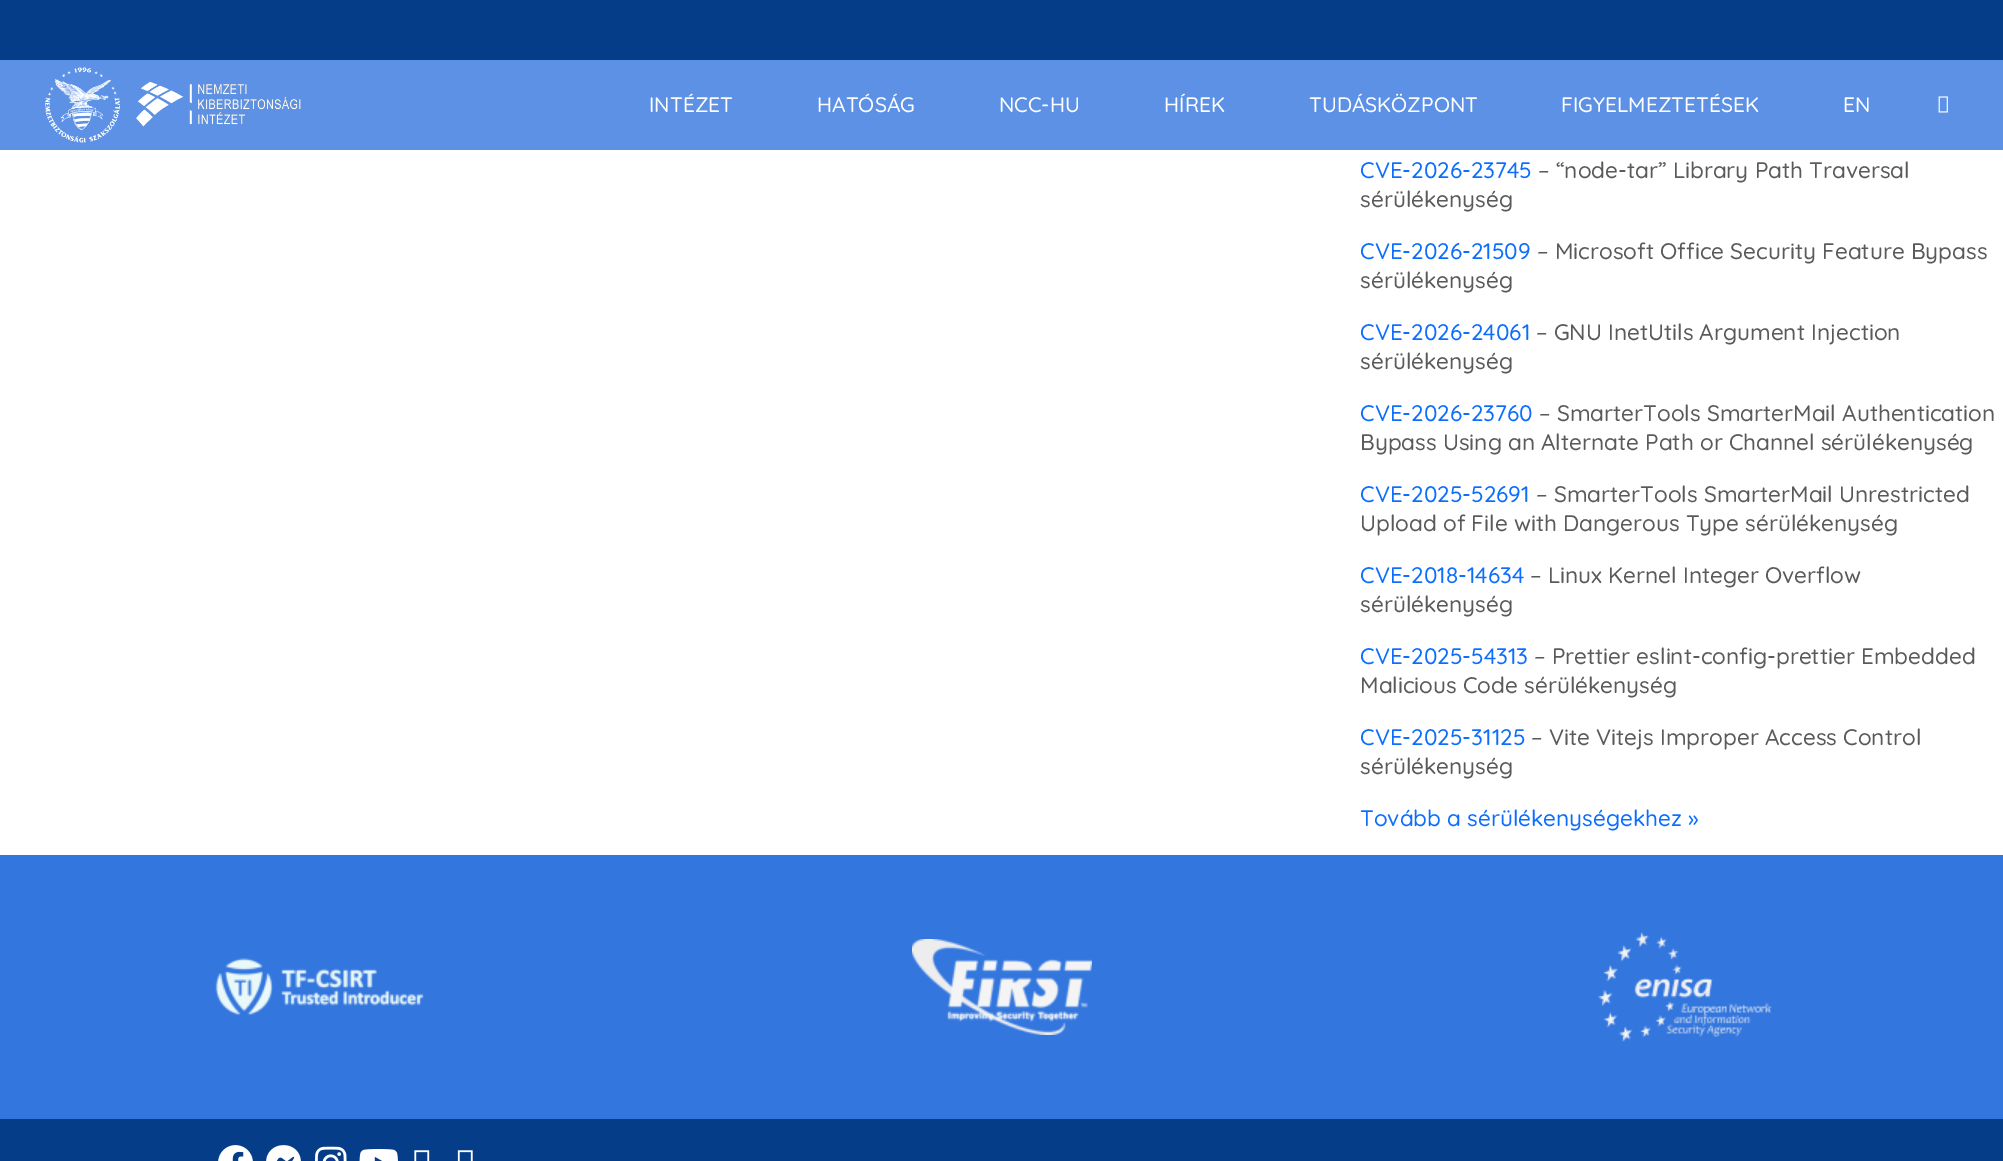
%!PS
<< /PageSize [2003 1161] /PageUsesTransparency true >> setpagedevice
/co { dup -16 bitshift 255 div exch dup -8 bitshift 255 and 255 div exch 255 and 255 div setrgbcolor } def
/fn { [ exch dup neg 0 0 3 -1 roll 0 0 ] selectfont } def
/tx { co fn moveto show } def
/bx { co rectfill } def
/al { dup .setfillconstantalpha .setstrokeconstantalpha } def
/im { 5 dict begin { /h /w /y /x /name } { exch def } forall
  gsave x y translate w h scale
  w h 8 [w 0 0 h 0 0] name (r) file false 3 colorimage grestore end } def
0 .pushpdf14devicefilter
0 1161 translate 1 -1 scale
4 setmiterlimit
0 0 2003 1161 16#FFFFFF bx
0 0 2003 60 16#063D88 bx
0.8 al
0 60 2003 90 16#3376DE bx
1 al
(media/1.raw) 45 67 256 76 im
(media/2.raw) 1938 96 10 17 im
0 855 2003 264 16#3376DE bx
(media/3.raw) 215 958 209 58 im
(media/4.raw) 912 939 180 96 im
(media/5.raw) 1597 932 175 110 im
0 1119 2003 42 16#063D88 bx
(media/6.raw) 218 1145 35 16 im
(media/7.raw) 266 1145 35 16 im
(media/8.raw) 315 1146 32 15 im
(media/9.raw) 359 1149 39 12 im
(media/10.raw) 414 1150 16 11 im
(media/11.raw) 457 1150 16 11 im
(INTÉZET) 649 112 /Quicksand-Medium 21 16#FFFFFF tx
(HATÓSÁG) 817 112 /Quicksand-Medium 21 16#FFFFFF tx
(NCC-HU) 999 112 /Quicksand-Medium 21 16#FFFFFF tx
(HÍREK) 1164 112 /Quicksand-Medium 21 16#FFFFFF tx
(TUDÁSKÖZPONT) 1309 112 /Quicksand-Medium 21 16#FFFFFF tx
(FIGYELMEZTETÉSEK) 1561 112 /Quicksand-Medium 21 16#FFFFFF tx
(EN) 1843 112 /Quicksand-Medium 21 16#FFFFFF tx
(CVE-2026-23745) 1360 178 /Quicksand-Medium 22.5 16#0D6EFD tx
(– “node-tar” Library Path Traversal) 1538 178 /Quicksand-Medium 22.5 16#5A5A5A tx
(sérülékenység) 1360 207 /Quicksand-Medium 22.5 16#5A5A5A tx
(CVE-2026-21509) 1360 259 /Quicksand-Medium 22.5 16#0D6EFD tx
(– Microsoft Office Security Feature Bypass) 1537 259 /Quicksand-Medium 22.5 16#5A5A5A tx
(sérülékenység) 1360 288 /Quicksand-Medium 22.5 16#5A5A5A tx
(CVE-2026-24061) 1360 340 /Quicksand-Medium 22.5 16#0D6EFD tx
(– GNU InetUtils Argument Injection) 1536 340 /Quicksand-Medium 22.5 16#5A5A5A tx
(sérülékenység) 1360 369 /Quicksand-Medium 22.5 16#5A5A5A tx
(CVE-2026-23760) 1360 421 /Quicksand-Medium 22.5 16#0D6EFD tx
(– SmarterTools SmarterMail Authentication) 1539 421 /Quicksand-Medium 22.5 16#5A5A5A tx
(Bypass Using an Alternate Path or Channel sérülékenység) 1360 450 /Quicksand-Medium 22.5 16#5A5A5A tx
(CVE-2025-52691) 1360 502 /Quicksand-Medium 22.5 16#0D6EFD tx
(– SmarterTools SmarterMail Unrestricted) 1536 502 /Quicksand-Medium 22.5 16#5A5A5A tx
(Upload of File with Dangerous Type sérülékenység) 1360 531 /Quicksand-Medium 22.5 16#5A5A5A tx
(CVE-2018-14634) 1360 583 /Quicksand-Medium 22.5 16#0D6EFD tx
(– Linux Kernel Integer Overflow) 1530 583 /Quicksand-Medium 22.5 16#5A5A5A tx
(sérülékenység) 1360 612 /Quicksand-Medium 22.5 16#5A5A5A tx
(CVE-2025-54313) 1360 664 /Quicksand-Medium 22.5 16#0D6EFD tx
(– Prettier eslint-config-prettier Embedded) 1534 664 /Quicksand-Medium 22.5 16#5A5A5A tx
(Malicious Code sérülékenység) 1360 693 /Quicksand-Medium 22.5 16#5A5A5A tx
(CVE-2025-31125) 1360 745 /Quicksand-Medium 22.5 16#0D6EFD tx
(– Vite Vitejs Improper Access Control) 1531 745 /Quicksand-Medium 22.5 16#5A5A5A tx
(sérülékenység) 1360 774 /Quicksand-Medium 22.5 16#5A5A5A tx
(Tovább a sérülékenységekhez ») 1360 826 /Quicksand-Medium 22.5 16#0D6EFD tx
.poppdf14devicefilter showpage
